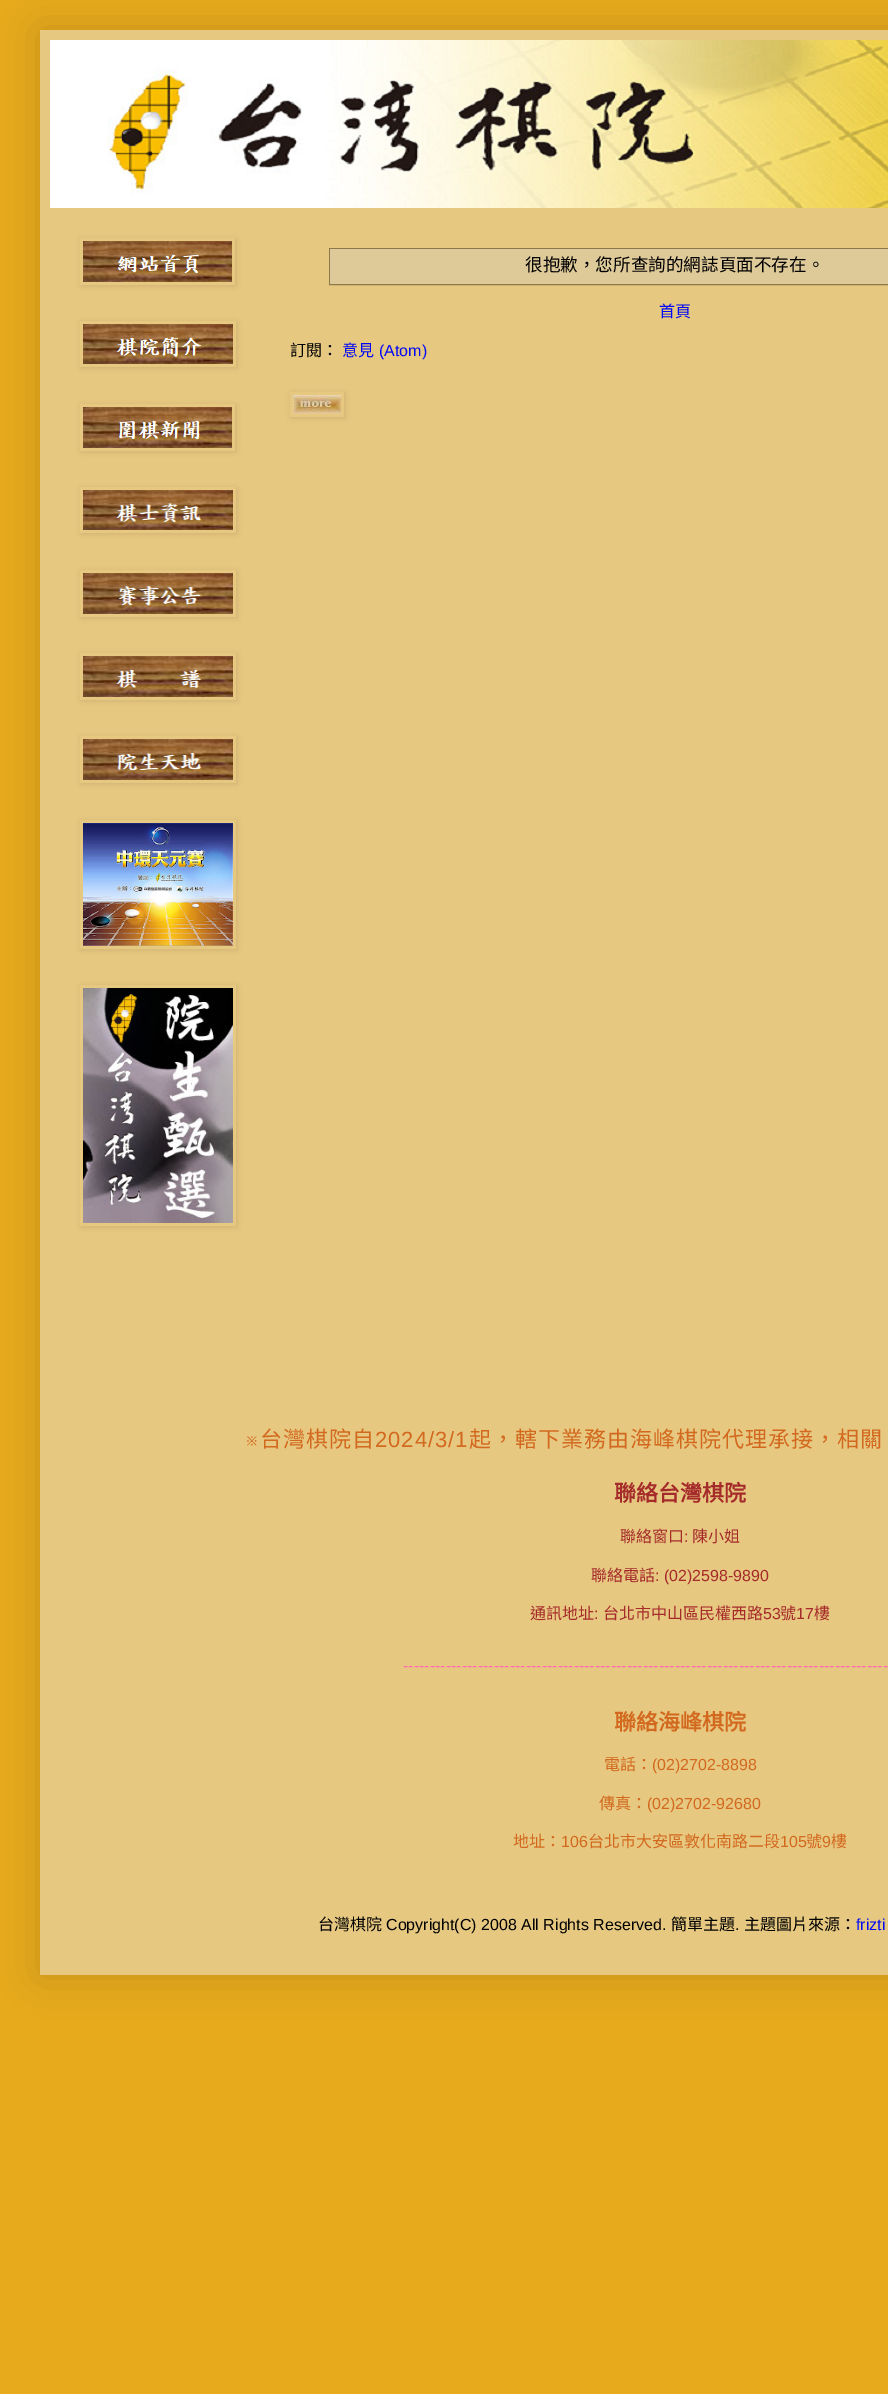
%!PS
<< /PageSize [888 2394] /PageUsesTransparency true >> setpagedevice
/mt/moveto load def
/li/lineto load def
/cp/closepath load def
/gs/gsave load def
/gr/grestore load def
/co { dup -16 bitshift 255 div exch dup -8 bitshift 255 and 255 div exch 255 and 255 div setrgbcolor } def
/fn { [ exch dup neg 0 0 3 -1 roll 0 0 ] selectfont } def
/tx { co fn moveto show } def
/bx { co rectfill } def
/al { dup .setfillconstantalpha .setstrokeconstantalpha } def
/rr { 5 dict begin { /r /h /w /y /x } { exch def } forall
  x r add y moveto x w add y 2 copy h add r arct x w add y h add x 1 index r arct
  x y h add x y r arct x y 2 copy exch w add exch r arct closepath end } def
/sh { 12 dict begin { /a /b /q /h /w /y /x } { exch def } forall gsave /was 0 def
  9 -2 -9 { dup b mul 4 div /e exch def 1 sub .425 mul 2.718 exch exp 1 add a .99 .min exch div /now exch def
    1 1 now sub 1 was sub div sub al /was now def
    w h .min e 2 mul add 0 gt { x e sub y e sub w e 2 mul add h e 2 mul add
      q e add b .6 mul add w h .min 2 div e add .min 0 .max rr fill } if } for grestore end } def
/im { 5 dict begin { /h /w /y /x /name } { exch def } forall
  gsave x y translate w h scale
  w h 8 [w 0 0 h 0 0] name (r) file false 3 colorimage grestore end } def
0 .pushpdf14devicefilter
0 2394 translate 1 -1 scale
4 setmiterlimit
0 0 888 2394 16#E7AA1C bx
16#000000 co
40 30 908 1945 0 20 .15 sh
40 30 848 1945 16#E7C881 bx
(media/1.raw) 50 40 838 168 im
gs
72 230 mt 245 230 li 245 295 li 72 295 li cp 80 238 mt 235 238 li 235 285 li 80 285 li cp eoclip newpath
16#000000 co
81 239 155 47 0 2.5 .1 sh
gr
(media/2.raw) 83 241 149 41 im
gs
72 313 mt 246 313 li 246 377 li 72 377 li cp 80 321 mt 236 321 li 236 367 li 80 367 li cp eoclip newpath
16#000000 co
81 322 156 46 0 2.5 .1 sh
gr
(media/3.raw) 83 324 150 40 im
gs
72 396 mt 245 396 li 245 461 li 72 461 li cp 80 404 mt 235 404 li 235 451 li 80 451 li cp eoclip newpath
16#000000 co
81 405 155 47 0 2.5 .1 sh
gr
(media/4.raw) 83 407 149 41 im
gs
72 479 mt 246 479 li 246 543 li 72 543 li cp 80 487 mt 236 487 li 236 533 li 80 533 li cp eoclip newpath
16#000000 co
81 488 156 46 0 2.5 .1 sh
gr
(media/5.raw) 83 490 150 40 im
gs
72 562 mt 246 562 li 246 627 li 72 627 li cp 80 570 mt 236 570 li 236 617 li 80 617 li cp eoclip newpath
16#000000 co
81 571 156 47 0 2.5 .1 sh
gr
(media/6.raw) 83 573 150 41 im
gs
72 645 mt 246 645 li 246 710 li 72 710 li cp 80 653 mt 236 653 li 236 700 li 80 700 li cp eoclip newpath
16#000000 co
81 654 156 47 0 2.5 .1 sh
gr
(media/7.raw) 83 656 150 41 im
gs
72 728 mt 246 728 li 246 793 li 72 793 li cp 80 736 mt 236 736 li 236 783 li 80 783 li cp eoclip newpath
16#000000 co
81 737 156 47 0 2.5 .1 sh
gr
(media/8.raw) 83 739 150 41 im
gs
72 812 mt 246 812 li 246 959 li 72 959 li cp 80 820 mt 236 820 li 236 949 li 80 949 li cp eoclip newpath
16#000000 co
81 821 156 129 0 2.5 .1 sh
gr
(media/9.raw) 83 823 150 123 im
gs
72 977 mt 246 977 li 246 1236 li 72 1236 li cp 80 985 mt 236 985 li 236 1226 li 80 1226 li cp eoclip newpath
16#000000 co
81 986 156 241 0 2.5 .1 sh
gr
(media/10.raw) 83 988 150 235 im
16#8B784D co
329.5 248.5 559 36 rectstroke
330 249 558 35 16#DEC999 bx
gs
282 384 mt 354 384 li 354 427 li 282 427 li cp 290 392 mt 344 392 li 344 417 li 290 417 li cp eoclip newpath
16#000000 co
291 393 54 25 0 2.5 .1 sh
gr
(media/11.raw) 293 395 48 19 im
(很抱歉，您所查詢的網誌頁面不存在。) 525 271 /NotoSansCJKTC-Regular 17.6 16#000000 tx
(首頁) 659 317 /NotoSansCJKTC-Regular 16 16#0008F5 tx
(訂閱：) 290 356 /NotoSansCJKTC-Regular 16 16#000000 tx
(意見) 342 356 /NotoSansCJKTC-Regular 16 16#0008F5 tx
(\(Atom\)) 379 356 /LiberationSans-Regular 16 16#0008F5 tx
/FreeSans-Regular 22 fn
16#D2691E co
245 1447 mt 1 0 (※) ashow
/NotoSansCJKTC-Regular 22 fn
260 1447 mt 1 0 (台灣棋院自) ashow
/LiberationSans-Regular 22 fn
375 1447 mt 1 0 (2024/3/1) ashow
/NotoSansCJKTC-Regular 22 fn
469 1447 mt 1 0 (起，轄下業務由海峰棋院代理承接，相關) ashow
(聯絡台灣棋院) 614 1501 /NotoSansCJKTC-Bold 22 16#A52A2A tx
(聯絡窗口) 620 1542 /NotoSansCJKTC-Regular 16 16#A52A2A tx
(:) 684 1542 /LiberationSans-Regular 16 16#A52A2A tx
(陳小姐) 692 1542 /NotoSansCJKTC-Regular 16 16#A52A2A tx
(聯絡電話) 591 1581 /NotoSansCJKTC-Regular 16 16#A52A2A tx
(: \(02\)2598-9890) 655 1581 /LiberationSans-Regular 16 16#A52A2A tx
(通訊地址) 530 1619 /NotoSansCJKTC-Regular 16 16#A52A2A tx
(:) 594 1619 /LiberationSans-Regular 16 16#A52A2A tx
(台北市中山區民權西路) 603 1619 /NotoSansCJKTC-Regular 16 16#A52A2A tx
(53) 763 1619 /LiberationSans-Regular 16 16#A52A2A tx
(號) 780 1619 /NotoSansCJKTC-Regular 16 16#A52A2A tx
(17) 796 1619 /LiberationSans-Regular 16 16#A52A2A tx
(樓) 814 1619 /NotoSansCJKTC-Regular 16 16#A52A2A tx
(-------------------------------------------------------------------------------------------) 403 1671 /LiberationSans-Regular 16 16#FF69B4 tx
(聯絡海峰棋院) 614 1730 /NotoSansCJKTC-Bold 22 16#D2691E tx
(電話：) 604 1770 /NotoSansCJKTC-Regular 16 16#D2691E tx
(\(02\)2702-8898) 652 1770 /LiberationSans-Regular 16 16#D2691E tx
(傳真：) 599 1809 /NotoSansCJKTC-Regular 16 16#D2691E tx
(\(02\)2702-92680) 647 1809 /LiberationSans-Regular 16 16#D2691E tx
(地址：) 513 1847 /NotoSansCJKTC-Regular 16 16#D2691E tx
(106) 561 1847 /LiberationSans-Regular 16 16#D2691E tx
(台北市大安區敦化南路二段) 588 1847 /NotoSansCJKTC-Regular 16 16#D2691E tx
(105) 780 1847 /LiberationSans-Regular 16 16#D2691E tx
(號) 806 1847 /NotoSansCJKTC-Regular 16 16#D2691E tx
(9) 822 1847 /LiberationSans-Regular 16 16#D2691E tx
(樓) 831 1847 /NotoSansCJKTC-Regular 16 16#D2691E tx
(台灣棋院) 318 1930 /NotoSansCJKTC-Regular 16 16#000000 tx
(Copyright\(C\) 2008 All Rights Reserved.) 386 1930 /LiberationSans-Regular 16 16#000000 tx
(簡單主題) 671 1930 /NotoSansCJKTC-Regular 16 16#000000 tx
(.) 735 1930 /LiberationSans-Regular 16 16#000000 tx
(主題圖片來源：) 744 1930 /NotoSansCJKTC-Regular 16 16#000000 tx
(frizti) 856 1930 /LiberationSans-Regular 16 16#0008F5 tx
.poppdf14devicefilter showpage
